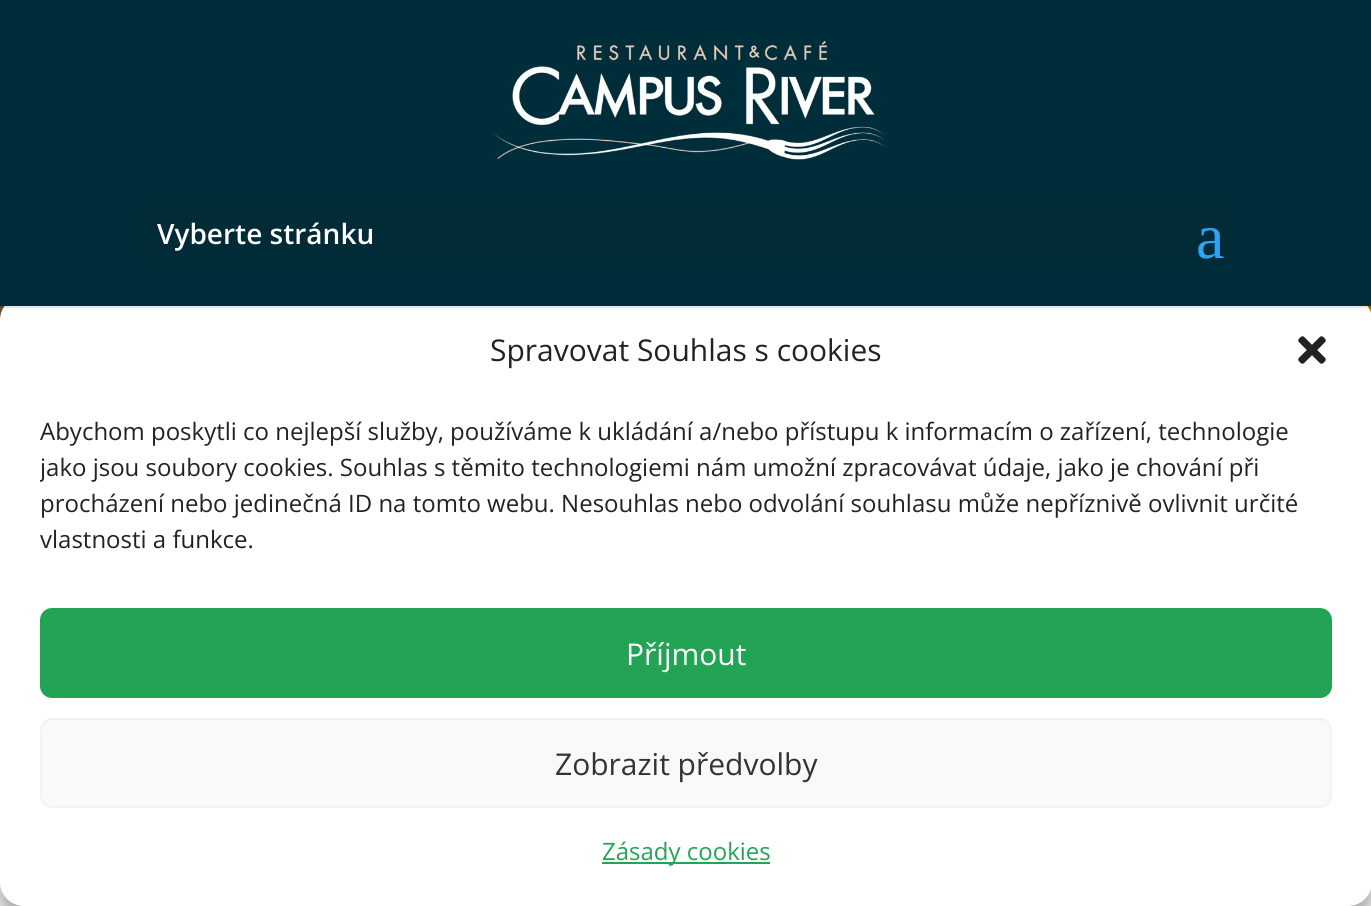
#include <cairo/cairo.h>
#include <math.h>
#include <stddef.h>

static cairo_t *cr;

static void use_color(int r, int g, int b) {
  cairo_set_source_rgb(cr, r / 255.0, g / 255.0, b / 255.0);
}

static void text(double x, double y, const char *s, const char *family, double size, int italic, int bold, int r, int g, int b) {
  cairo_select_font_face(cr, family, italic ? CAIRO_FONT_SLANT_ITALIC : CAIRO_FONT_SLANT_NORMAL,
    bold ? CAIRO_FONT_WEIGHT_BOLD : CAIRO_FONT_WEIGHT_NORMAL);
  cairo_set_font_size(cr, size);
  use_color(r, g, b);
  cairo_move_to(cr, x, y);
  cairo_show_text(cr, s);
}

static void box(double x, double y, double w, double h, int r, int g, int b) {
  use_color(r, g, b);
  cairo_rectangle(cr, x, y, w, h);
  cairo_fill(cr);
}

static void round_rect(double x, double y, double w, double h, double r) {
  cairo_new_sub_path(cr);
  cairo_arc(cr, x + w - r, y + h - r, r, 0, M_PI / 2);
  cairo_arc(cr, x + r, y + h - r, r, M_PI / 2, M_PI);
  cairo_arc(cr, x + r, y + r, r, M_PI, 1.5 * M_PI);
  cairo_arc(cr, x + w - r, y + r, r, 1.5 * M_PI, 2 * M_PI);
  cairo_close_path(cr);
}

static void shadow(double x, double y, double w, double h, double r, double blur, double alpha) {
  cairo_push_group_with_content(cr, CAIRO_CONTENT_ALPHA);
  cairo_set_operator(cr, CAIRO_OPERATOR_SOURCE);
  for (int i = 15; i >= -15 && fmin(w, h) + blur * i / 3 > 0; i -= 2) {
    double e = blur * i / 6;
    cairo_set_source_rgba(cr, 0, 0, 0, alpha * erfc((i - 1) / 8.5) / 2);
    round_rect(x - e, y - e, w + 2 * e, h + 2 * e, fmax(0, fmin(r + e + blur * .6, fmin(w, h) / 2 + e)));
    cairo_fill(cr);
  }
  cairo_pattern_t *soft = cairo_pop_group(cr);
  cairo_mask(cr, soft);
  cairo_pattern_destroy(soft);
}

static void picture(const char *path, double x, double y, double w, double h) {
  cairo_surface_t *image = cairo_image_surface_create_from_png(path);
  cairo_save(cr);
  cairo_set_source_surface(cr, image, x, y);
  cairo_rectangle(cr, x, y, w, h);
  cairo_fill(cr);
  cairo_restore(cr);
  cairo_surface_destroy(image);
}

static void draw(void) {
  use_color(255, 255, 255);
  cairo_paint(cr);
  picture("img_02.png", 0, 306, 1371, 14);
  use_color(0, 0, 0);
  shadow(0, 308, 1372, 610, 24, 6, 0.23);
  shadow(0, 316, 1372, 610, 24, 20, 0.19);
  use_color(255, 255, 255);
  round_rect(0, 296, 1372, 610, 24);
  cairo_fill(cr);
  cairo_set_source_rgba(cr, 0, 0, 0, 0.1);
  cairo_rectangle(cr, 0, 306, 1371, 2);
  cairo_fill(cr);
  box(0, 0, 1371, 306, 0, 45, 58);
  picture("img_01.png", 493, 40, 393, 120);
  use_color(0, 43, 55);
  round_rect(138, 200, 1096, 66, 10);
  cairo_fill(cr);
  picture("img_03.png", 1298, 336, 28, 28);
  use_color(35, 164, 85);
  round_rect(41, 609, 1290, 88, 11);
  cairo_fill_preserve(cr);
  cairo_stroke(cr);
  use_color(249, 249, 249);
  round_rect(41, 719, 1290, 88, 11);
  cairo_fill_preserve(cr);
  use_color(242, 242, 242);
  cairo_stroke(cr);
  box(602, 862, 168, 2, 35, 164, 85);
  text(157, 244, "Vyberte stránku", "Open Sans SemiBold", 28, 0, 0, 255, 255, 255);
  text(1196, 258, "a", "Liberation Serif", 64, 0, 0, 46, 163, 242);
  text(490, 361, "Spravovat Souhlas s cookies", "Open Sans", 30, 0, 0, 34, 34, 34);
  text(40, 440, "Abychom poskytli co nejlepší služby, používáme k ukládání a/nebo přístupu k informacím o zařízení, technologie", "Open Sans", 24, 0, 0, 34, 34, 34);
  cairo_save(cr);
  cairo_rectangle(cr, 40, 414, 1292, 154);
  cairo_clip(cr);
  text(40, 476, "jako jsou soubory cookies. Souhlas s těmito technologiemi nám umožní zpracovávat údaje, jako je chování při", "Open Sans", 24, 0, 0, 34, 34, 34);
  cairo_restore(cr);
  text(40, 512, "procházení nebo jedinečná ID na tomto webu. Nesouhlas nebo odvolání souhlasu může nepříznivě ovlivnit určité", "Open Sans", 24, 0, 0, 34, 34, 34);
  text(40, 548, "vlastnosti a funkce.", "Open Sans", 24, 0, 0, 34, 34, 34);
  text(626, 665, "Příjmout", "Open Sans", 30, 0, 0, 255, 255, 255);
  text(555, 775, "Zobrazit předvolby", "Open Sans", 30, 0, 0, 51, 51, 51);
  text(602, 860, "Zásady cookies", "Open Sans", 24, 0, 0, 35, 164, 85);
}

int main(void) {
  cairo_surface_t *surface = cairo_image_surface_create(CAIRO_FORMAT_RGB24, 1371, 906);
  cr = cairo_create(surface);
  cairo_font_options_t *options = cairo_font_options_create();
  cairo_font_options_set_hint_metrics(options, CAIRO_HINT_METRICS_OFF);
  cairo_font_options_set_hint_style(options, CAIRO_HINT_STYLE_NONE);
  cairo_set_font_options(cr, options);
  cairo_set_miter_limit(cr, 4);
  draw();
  cairo_surface_write_to_png(surface, "out.png");
  cairo_font_options_destroy(options);
  cairo_destroy(cr);
  cairo_surface_destroy(surface);
  return 0;
}
